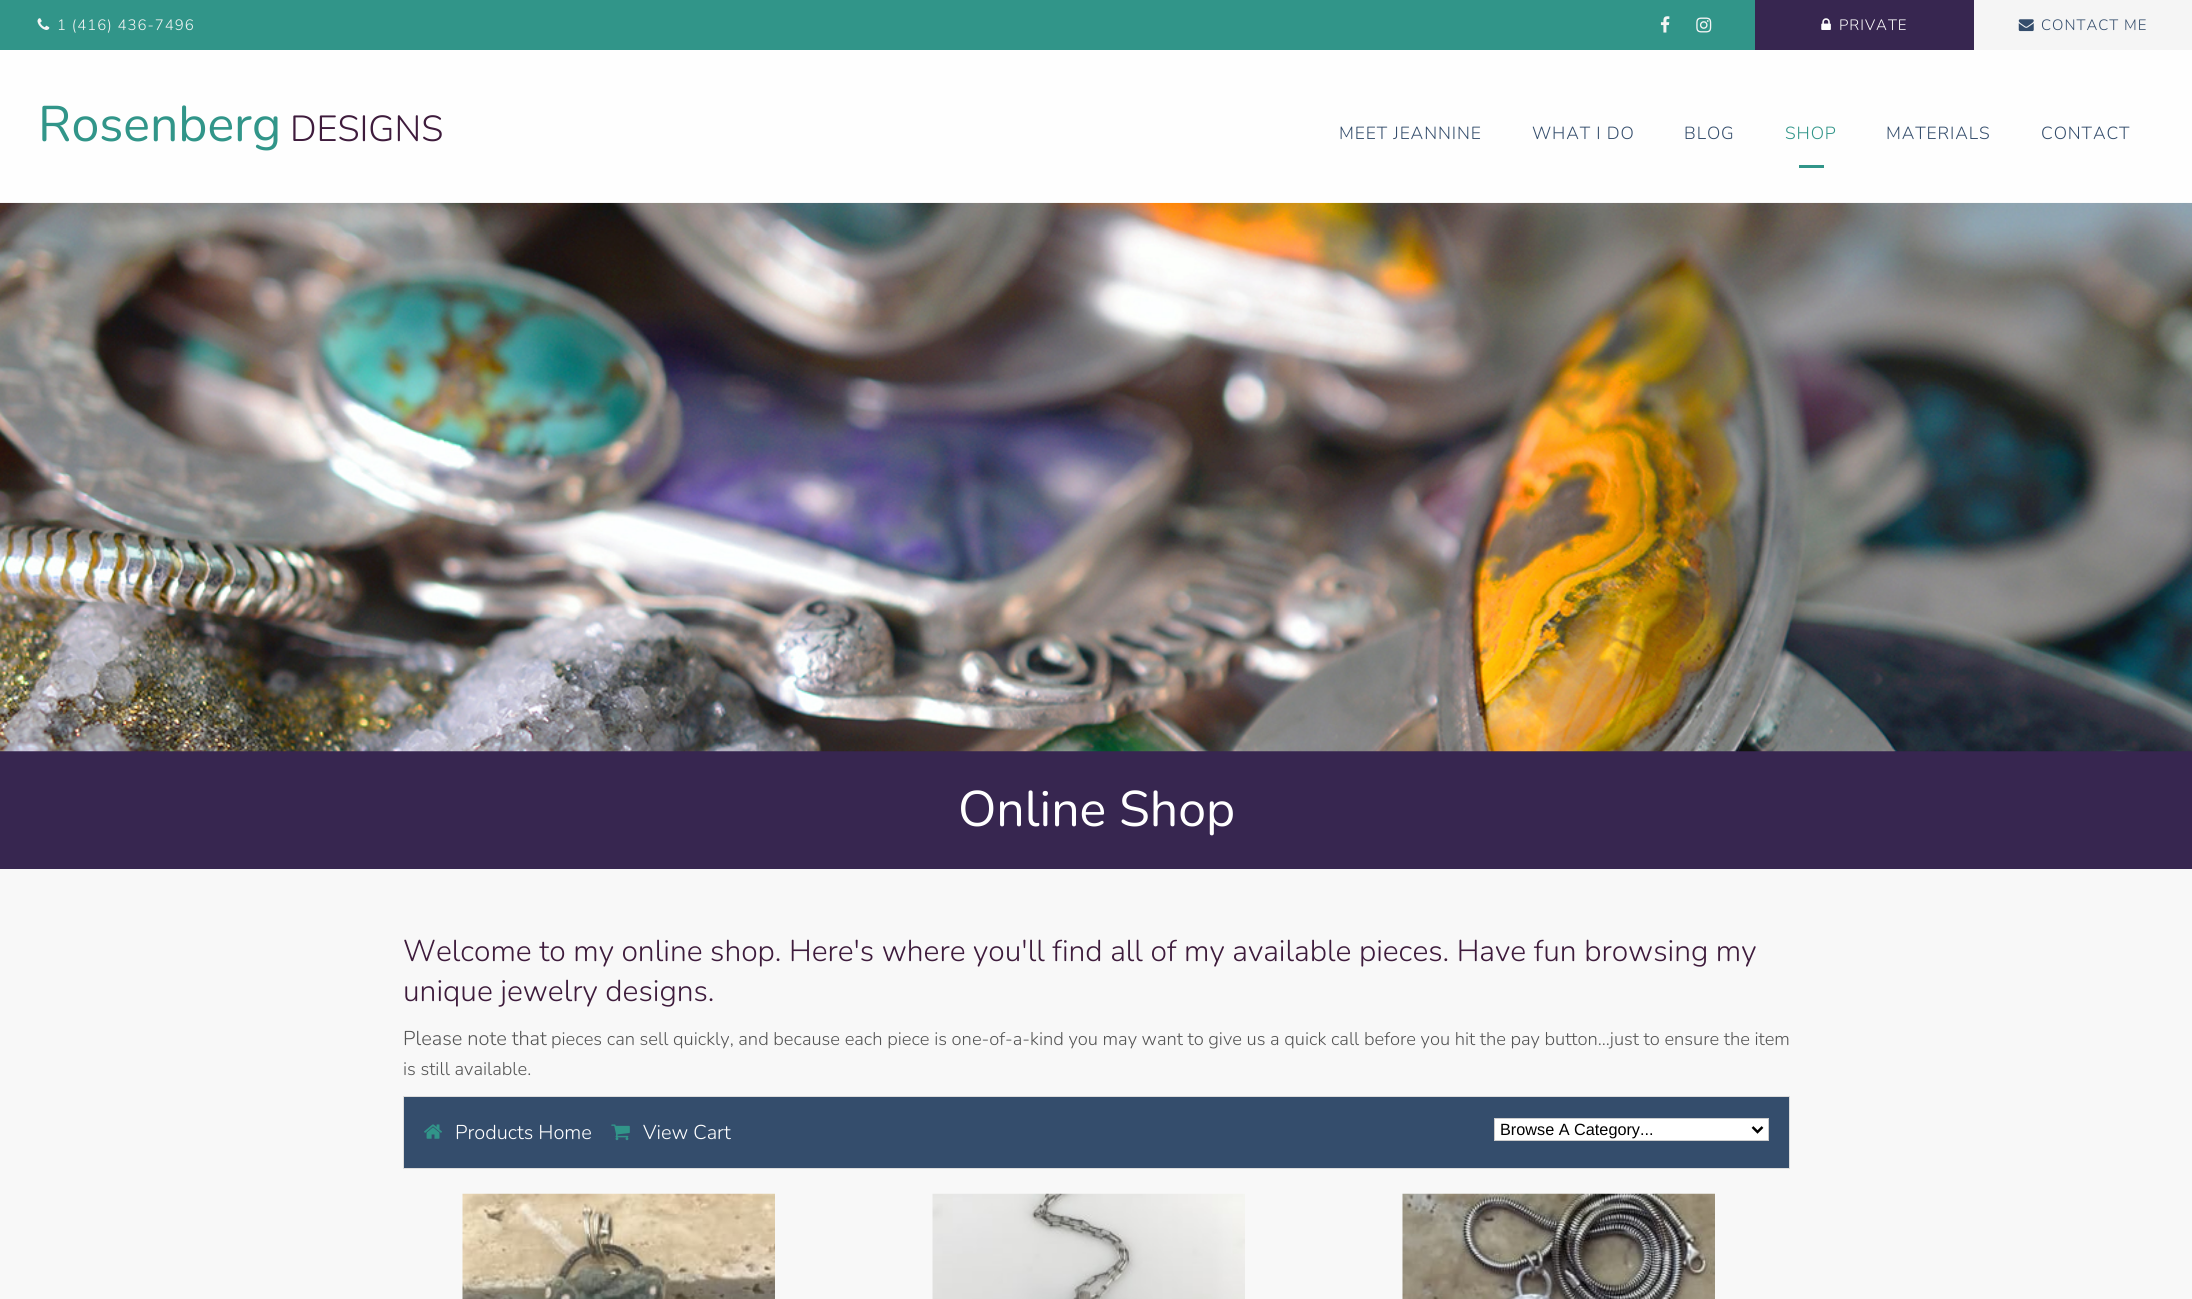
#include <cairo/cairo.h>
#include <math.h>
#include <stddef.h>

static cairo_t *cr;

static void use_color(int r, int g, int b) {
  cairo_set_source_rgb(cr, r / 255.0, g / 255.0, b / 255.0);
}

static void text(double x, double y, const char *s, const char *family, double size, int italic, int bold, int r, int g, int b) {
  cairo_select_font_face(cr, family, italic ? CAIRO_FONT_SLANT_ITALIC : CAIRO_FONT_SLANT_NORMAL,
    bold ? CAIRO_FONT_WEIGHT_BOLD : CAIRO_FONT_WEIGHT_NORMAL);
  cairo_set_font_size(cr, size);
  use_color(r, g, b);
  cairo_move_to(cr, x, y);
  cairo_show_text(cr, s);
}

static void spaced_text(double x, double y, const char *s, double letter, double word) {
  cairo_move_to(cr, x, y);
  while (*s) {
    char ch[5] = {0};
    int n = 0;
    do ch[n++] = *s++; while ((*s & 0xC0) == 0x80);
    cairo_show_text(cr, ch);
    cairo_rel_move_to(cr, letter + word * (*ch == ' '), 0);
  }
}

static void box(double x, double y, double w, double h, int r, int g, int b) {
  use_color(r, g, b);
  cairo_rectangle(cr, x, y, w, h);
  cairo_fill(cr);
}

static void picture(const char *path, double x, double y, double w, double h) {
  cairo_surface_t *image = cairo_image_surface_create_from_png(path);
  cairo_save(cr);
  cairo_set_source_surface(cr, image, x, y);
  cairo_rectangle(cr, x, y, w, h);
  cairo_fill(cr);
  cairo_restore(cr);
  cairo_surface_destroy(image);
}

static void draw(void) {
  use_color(248, 248, 248);
  cairo_paint(cr);
  box(0, 0, 1755, 50, 49, 149, 137);
  picture("img_01.png", 37, 18, 13, 12);
  picture("img_02.png", 1660, 16, 10, 17);
  picture("img_03.png", 1696, 17, 16, 16);
  box(1755, 0, 219, 50, 55, 38, 80);
  picture("img_04.png", 1821, 18, 10, 12);
  box(1974, 0, 218, 50, 245, 245, 245);
  picture("img_05.png", 2018, 19, 16, 13);
  box(0, 751, 2192, 118, 55, 38, 80);
  picture("img_06.png", 0, 202, 2192, 550);
  cairo_set_source_rgba(cr, 1, 1, 1, 0.9);
  cairo_rectangle(cr, 0, 50, 2192, 153);
  cairo_fill(cr);
  box(1799, 165, 25, 3, 49, 149, 137);
  use_color(52, 77, 108);
  cairo_rectangle(cr, 403.5, 1096.5, 1386, 72);
  cairo_fill_preserve(cr);
  use_color(221, 221, 221);
  cairo_set_line_width(cr, 1);
  cairo_stroke(cr);
  picture("img_07.png", 424, 1124, 18, 15);
  picture("img_08.png", 611, 1124, 19, 17);
  use_color(255, 255, 255);
  cairo_rectangle(cr, 1494.5, 1118.5, 274, 22);
  cairo_fill_preserve(cr);
  use_color(204, 204, 204);
  cairo_stroke(cr);
  cairo_new_path(cr);
  cairo_move_to(cr, 1752.5, 1127);
  cairo_line_to(cr, 1757.5, 1132);
  cairo_line_to(cr, 1762.5, 1127);
  use_color(0, 0, 0);
  cairo_set_line_width(cr, 2.5);
  cairo_stroke(cr);
  picture("img_09.png", 462, 1193, 313, 106);
  picture("img_10.png", 932, 1193, 313, 106);
  picture("img_11.png", 1402, 1193, 313, 106);
  cairo_select_font_face(cr, "Nunito Light", CAIRO_FONT_SLANT_NORMAL, CAIRO_FONT_WEIGHT_NORMAL);
  cairo_set_font_size(cr, 15);
  use_color(245, 245, 245);
  spaced_text(57, 30, "1 (416) 436-7496", 1, 0);
  use_color(255, 255, 255);
  spaced_text(1839, 30, "PRIVATE", 1, 0);
  use_color(52, 77, 108);
  spaced_text(2041, 30, "CONTACT ME", 1, 0);
  text(38, 141, "Rosenberg", "Nunito", 50, 0, 0, 49, 149, 137);
  text(290, 141, "DESIGNS", "Nunito Light", 36.25, 0, 0, 62, 27, 60);
  cairo_set_font_size(cr, 17.5);
  use_color(52, 77, 108);
  spaced_text(1339, 139, "MEET JEANNINE", 0.9, 0);
  spaced_text(1532, 139, "WHAT I DO", 0.9, 0);
  spaced_text(1684, 139, "BLOG", 0.9, 0);
  use_color(49, 149, 137);
  spaced_text(1785, 139, "SHOP", 0.9, 0);
  use_color(52, 77, 108);
  spaced_text(1886, 139, "MATERIALS", 0.9, 0);
  spaced_text(2041, 139, "CONTACT", 0.9, 0);
  text(958, 826, "Online Shop", "Nunito", 50, 0, 0, 255, 255, 255);
  text(403, 961, "Welcome to my online shop. Here's where you'll find all of my available pieces. Have fun browsing my", "Nunito Light", 30, 0, 0, 62, 27, 60);
  text(403, 1001, "unique jewelry designs.", "Nunito Light", 30, 0, 0, 62, 27, 60);
  text(403, 1045, "Please note that", "Nunito Light", 20, 0, 0, 85, 85, 85);
  text(551, 1045, "pieces can sell quickly, and because each piece is one-of-a-kind you may want to give us a quick call before you hit the pay button...just to ensure the item", "Nunito Light", 18.33, 0, 0, 85, 85, 85);
  text(403, 1075, "is still available.", "Nunito Light", 18.33, 0, 0, 85, 85, 85);
  text(455, 1139, "Products Home", "Nunito Light", 20, 0, 0, 255, 255, 255);
  text(643, 1139, "View Cart", "Nunito Light", 20, 0, 0, 255, 255, 255);
  text(1500, 1135, "Browse A Category...", "Liberation Sans", 16.25, 0, 0, 0, 0, 0);
}

int main(void) {
  cairo_surface_t *surface = cairo_image_surface_create(CAIRO_FORMAT_RGB24, 2192, 1299);
  cr = cairo_create(surface);
  cairo_font_options_t *options = cairo_font_options_create();
  cairo_font_options_set_hint_metrics(options, CAIRO_HINT_METRICS_OFF);
  cairo_font_options_set_hint_style(options, CAIRO_HINT_STYLE_NONE);
  cairo_set_font_options(cr, options);
  cairo_set_miter_limit(cr, 4);
  draw();
  cairo_surface_write_to_png(surface, "out.png");
  cairo_font_options_destroy(options);
  cairo_destroy(cr);
  cairo_surface_destroy(surface);
  return 0;
}
